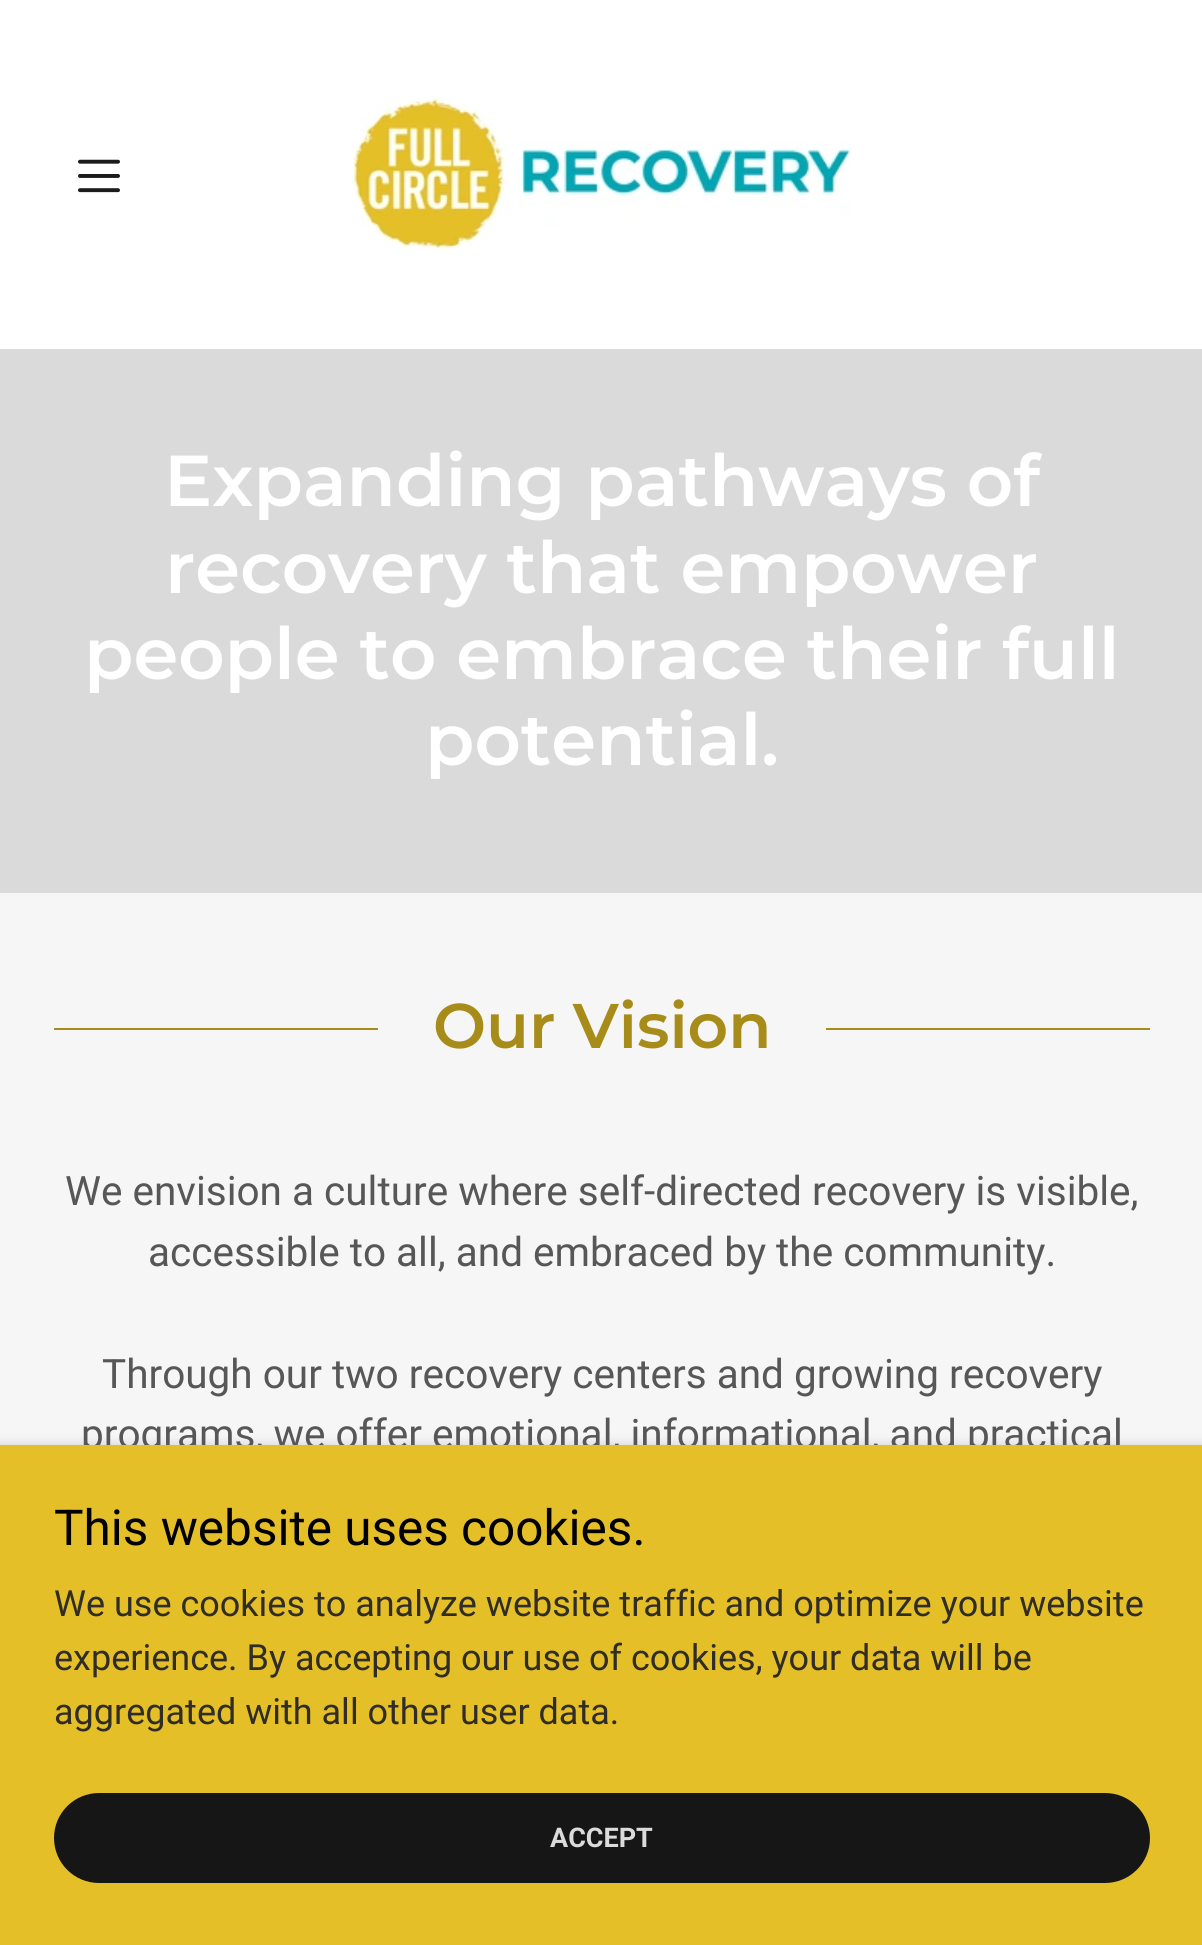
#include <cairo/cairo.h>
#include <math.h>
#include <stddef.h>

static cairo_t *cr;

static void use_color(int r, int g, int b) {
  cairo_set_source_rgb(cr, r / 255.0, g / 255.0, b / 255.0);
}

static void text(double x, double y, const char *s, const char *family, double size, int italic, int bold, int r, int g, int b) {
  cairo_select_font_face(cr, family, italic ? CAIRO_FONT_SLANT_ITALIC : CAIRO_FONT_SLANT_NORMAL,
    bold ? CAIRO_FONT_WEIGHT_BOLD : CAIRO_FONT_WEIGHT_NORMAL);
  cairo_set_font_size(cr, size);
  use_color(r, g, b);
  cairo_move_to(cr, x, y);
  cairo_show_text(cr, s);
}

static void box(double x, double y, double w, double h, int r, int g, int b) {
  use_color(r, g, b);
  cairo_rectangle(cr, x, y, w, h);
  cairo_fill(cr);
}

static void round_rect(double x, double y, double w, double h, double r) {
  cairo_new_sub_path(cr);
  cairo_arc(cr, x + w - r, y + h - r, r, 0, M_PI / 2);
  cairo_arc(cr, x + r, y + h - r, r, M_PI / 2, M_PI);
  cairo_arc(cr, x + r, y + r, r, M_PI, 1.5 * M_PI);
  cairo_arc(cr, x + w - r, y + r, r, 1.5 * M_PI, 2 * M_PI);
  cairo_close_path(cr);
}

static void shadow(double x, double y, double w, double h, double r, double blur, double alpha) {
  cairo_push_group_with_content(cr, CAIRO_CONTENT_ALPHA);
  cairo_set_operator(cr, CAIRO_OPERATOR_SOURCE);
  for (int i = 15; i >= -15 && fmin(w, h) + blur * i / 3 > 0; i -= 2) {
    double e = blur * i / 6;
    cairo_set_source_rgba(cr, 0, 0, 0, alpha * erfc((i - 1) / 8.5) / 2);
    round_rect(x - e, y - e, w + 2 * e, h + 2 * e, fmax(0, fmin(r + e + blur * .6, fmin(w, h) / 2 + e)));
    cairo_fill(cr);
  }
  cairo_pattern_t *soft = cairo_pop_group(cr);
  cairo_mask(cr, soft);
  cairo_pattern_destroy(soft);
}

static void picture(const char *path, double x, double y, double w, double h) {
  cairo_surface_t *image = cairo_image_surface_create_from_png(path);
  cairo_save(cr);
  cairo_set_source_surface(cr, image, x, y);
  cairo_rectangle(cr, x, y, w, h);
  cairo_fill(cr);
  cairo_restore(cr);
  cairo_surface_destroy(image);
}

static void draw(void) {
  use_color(255, 255, 255);
  cairo_paint(cr);
  picture("img_01.png", 78, 159, 42, 34);
  picture("img_02.png", 353, 96, 498, 156);
  box(0, 349, 1202, 544, 218, 218, 218);
  box(0, 893, 1202, 552, 246, 246, 246);
  box(54, 1028, 324, 2, 168, 140, 25);
  box(826, 1028, 324, 2, 168, 140, 25);
  use_color(0, 0, 0);
  shadow(0, 1449, 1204, 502, 0, 7, 0.3);
  text(164, 506, "Expanding pathways of", "Montserrat SemiBold", 72, 0, 0, 255, 255, 255);
  text(165, 593, "recovery that empower", "Montserrat SemiBold", 72, 0, 0, 255, 255, 255);
  text(84, 679, "people to embrace their full", "Montserrat SemiBold", 72, 0, 0, 255, 255, 255);
  text(425, 765, "potential.", "Montserrat SemiBold", 72, 0, 0, 255, 255, 255);
  text(433, 1048, "Our Vision", "Montserrat SemiBold", 63, 0, 0, 168, 140, 25);
  text(65, 1205, "We envision a culture where self-directed recovery is visible,", "Roboto", 40.5, 0, 0, 87, 87, 87);
  text(148, 1266, "accessible to all, and embraced by the community.", "Roboto", 40.5, 0, 0, 87, 87, 87);
  text(102, 1388, "Through our two recovery centers and growing recovery", "Roboto", 40.5, 0, 0, 87, 87, 87);
  text(81, 1448, "programs, we offer emotional, informational, and practical", "Roboto", 40.5, 0, 0, 87, 87, 87);
  box(0, 1445, 1202, 500, 228, 191, 40);
  text(54, 1545, "This website uses cookies.", "Roboto", 49.5, 0, 0, 0, 0, 0);
  text(54, 1616, "We use cookies to analyze website traffic and optimize your website", "Roboto", 36, 0, 0, 48, 45, 38);
  text(54, 1670, "experience. By accepting our use of cookies, your data will be", "Roboto", 36, 0, 0, 48, 45, 38);
  text(54, 1724, "aggregated with all other user data.", "Roboto", 36, 0, 0, 48, 45, 38);
  use_color(22, 22, 22);
  round_rect(54, 1793, 1096, 90, 45);
  cairo_fill(cr);
  text(550, 1847, "ACCEPT", "Roboto", 27, 0, 1, 219, 219, 219);
}

int main(void) {
  cairo_surface_t *surface = cairo_image_surface_create(CAIRO_FORMAT_RGB24, 1202, 1945);
  cr = cairo_create(surface);
  cairo_font_options_t *options = cairo_font_options_create();
  cairo_font_options_set_hint_metrics(options, CAIRO_HINT_METRICS_OFF);
  cairo_font_options_set_hint_style(options, CAIRO_HINT_STYLE_NONE);
  cairo_set_font_options(cr, options);
  cairo_set_miter_limit(cr, 4);
  draw();
  cairo_surface_write_to_png(surface, "out.png");
  cairo_font_options_destroy(options);
  cairo_destroy(cr);
  cairo_surface_destroy(surface);
  return 0;
}
